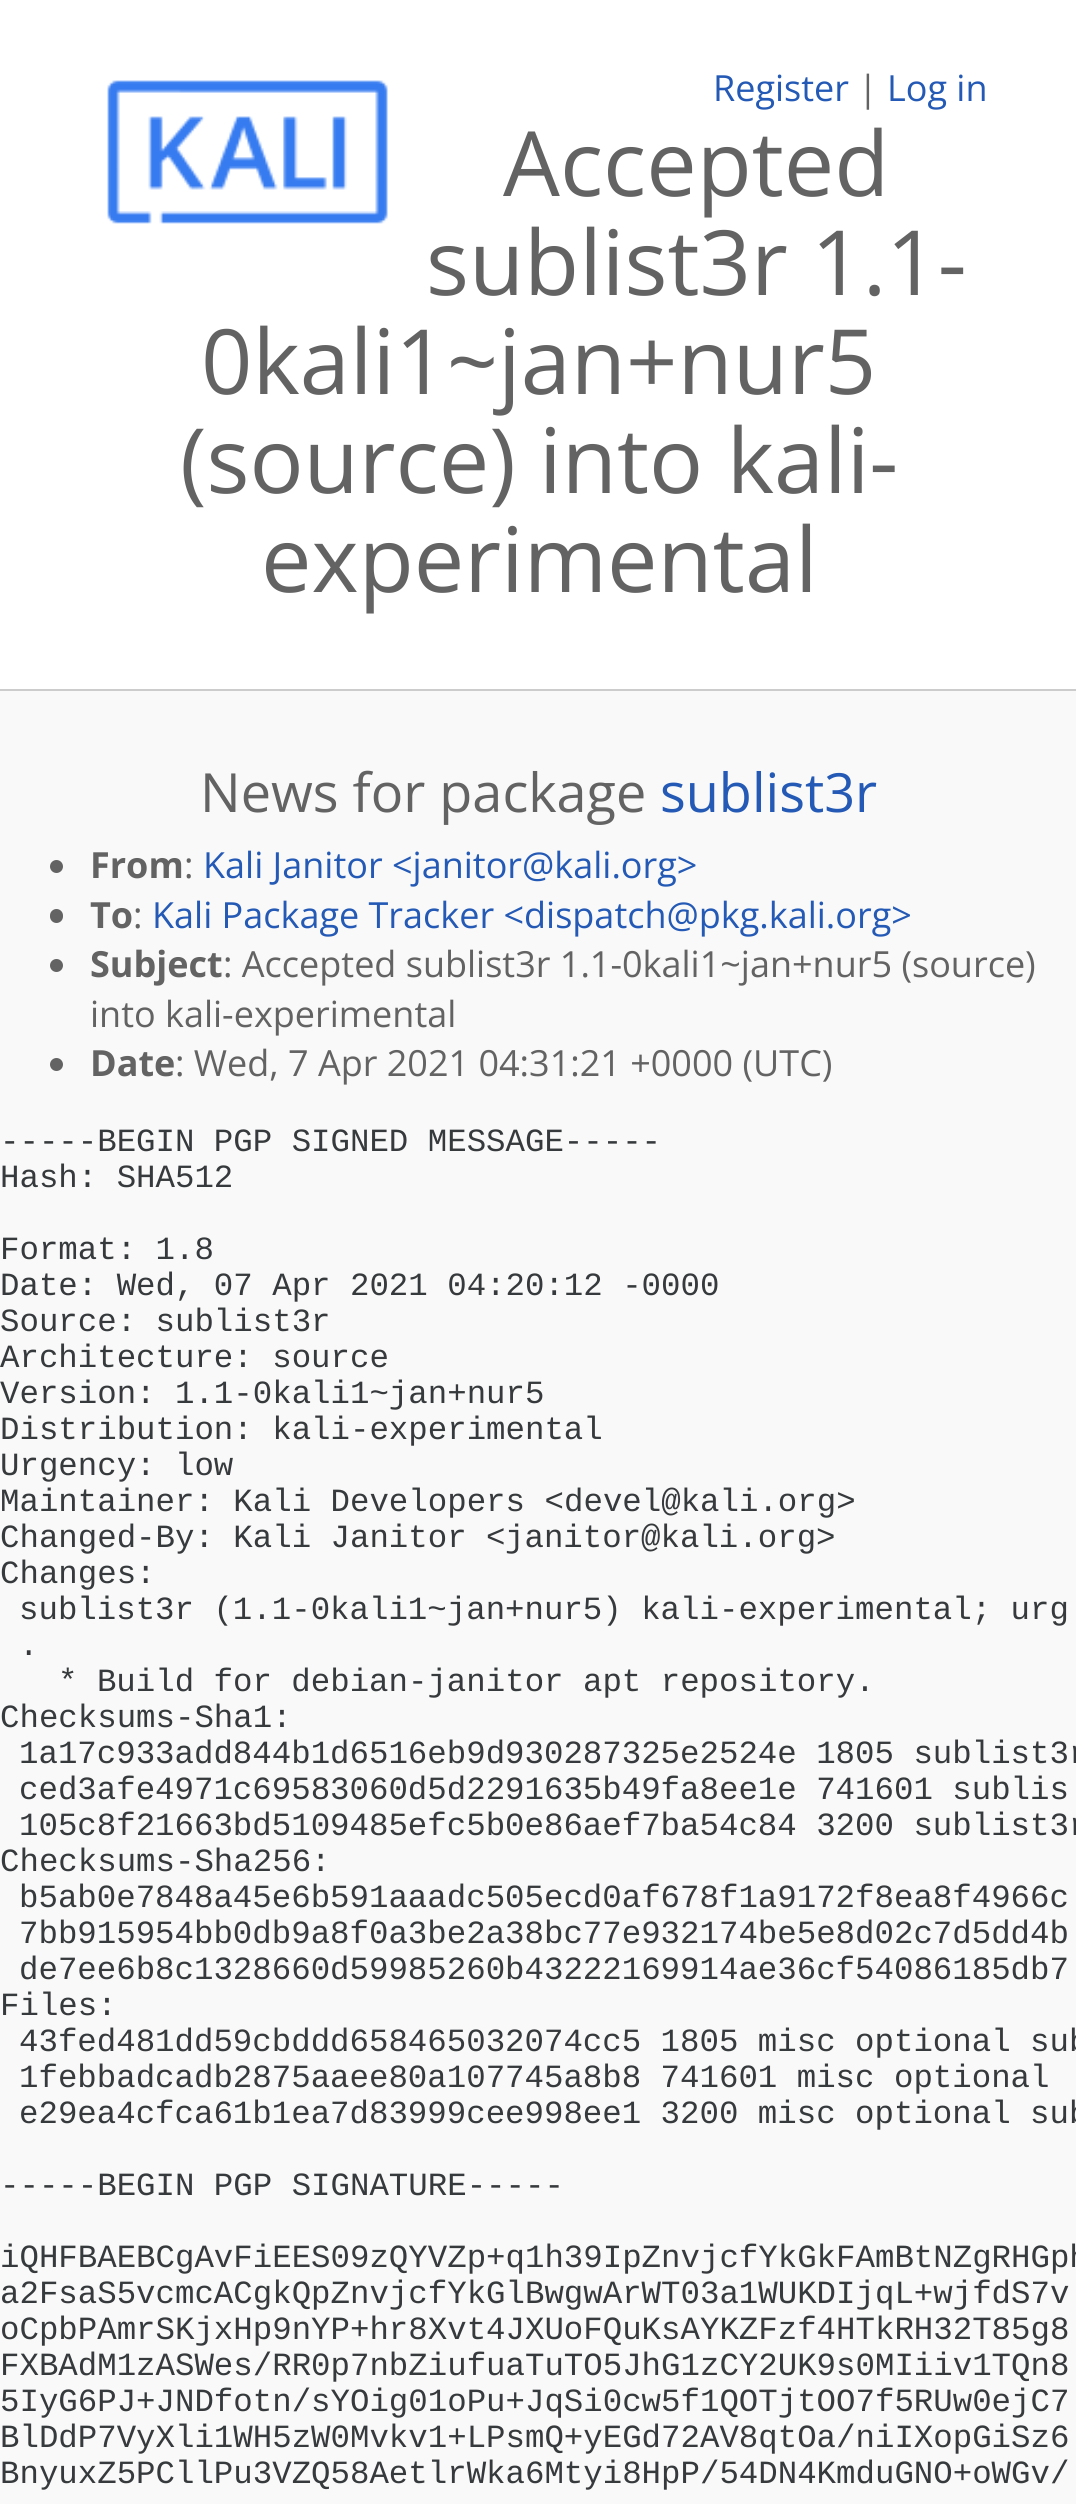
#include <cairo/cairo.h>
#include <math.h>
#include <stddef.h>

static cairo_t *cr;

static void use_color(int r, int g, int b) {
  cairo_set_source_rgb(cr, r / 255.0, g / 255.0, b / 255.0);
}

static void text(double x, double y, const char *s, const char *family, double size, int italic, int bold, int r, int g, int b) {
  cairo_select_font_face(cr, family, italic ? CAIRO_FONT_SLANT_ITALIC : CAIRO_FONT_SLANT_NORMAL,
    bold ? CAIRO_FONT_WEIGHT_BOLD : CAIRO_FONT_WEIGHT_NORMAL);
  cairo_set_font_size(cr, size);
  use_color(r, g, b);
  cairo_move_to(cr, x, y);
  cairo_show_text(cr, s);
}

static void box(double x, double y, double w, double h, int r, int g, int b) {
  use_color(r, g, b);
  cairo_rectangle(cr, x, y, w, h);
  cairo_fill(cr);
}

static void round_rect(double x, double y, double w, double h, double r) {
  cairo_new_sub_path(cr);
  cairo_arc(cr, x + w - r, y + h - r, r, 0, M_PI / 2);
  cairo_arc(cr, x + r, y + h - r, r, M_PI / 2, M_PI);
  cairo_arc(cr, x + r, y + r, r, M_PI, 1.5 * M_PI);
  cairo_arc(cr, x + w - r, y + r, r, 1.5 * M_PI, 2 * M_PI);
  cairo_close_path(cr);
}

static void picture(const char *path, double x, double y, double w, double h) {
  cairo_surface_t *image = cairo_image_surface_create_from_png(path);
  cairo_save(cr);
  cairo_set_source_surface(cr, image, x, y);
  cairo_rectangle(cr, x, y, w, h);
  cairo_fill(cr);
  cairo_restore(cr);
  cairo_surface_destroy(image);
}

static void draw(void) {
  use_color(249, 249, 249);
  cairo_paint(cr);
  box(0, 0, 1076, 689, 255, 255, 255);
  box(0, 689, 1076, 2, 204, 204, 204);
  picture("img_01.png", 107, 80, 281, 144);
  use_color(99, 99, 99);
  cairo_arc(cr, 56.5, 866.5, 6.5, 0, 2 * M_PI);
  cairo_fill(cr);
  round_rect(50, 909, 13, 14, 6.5);
  cairo_fill(cr);
  cairo_arc(cr, 56.5, 965.5, 6.5, 0, 2 * M_PI);
  cairo_fill(cr);
  cairo_arc(cr, 56.5, 1064.5, 6.5, 0, 2 * M_PI);
  cairo_fill(cr);
  text(713, 101, "Register", "Open Sans", 36, 0, 0, 36, 90, 181);
  text(858, 101, "|", "Open Sans", 36, 0, 0, 99, 99, 99);
  text(887, 101, "Log in", "Open Sans", 36, 0, 0, 36, 90, 181);
  text(503, 196, "Accepted", "Open Sans", 90, 0, 0, 99, 99, 99);
  text(426, 295, "sublist3r 1.1-", "Open Sans", 90, 0, 0, 99, 99, 99);
  text(201, 394, "0kali1~jan+nur5", "Open Sans", 90, 0, 0, 99, 99, 99);
  text(180, 493, "(source) into kali-", "Open Sans", 90, 0, 0, 99, 99, 99);
  text(261, 592, "experimental", "Open Sans", 90, 0, 0, 99, 99, 99);
  text(200, 812, "News for package", "Open Sans", 54, 0, 0, 99, 99, 99);
  text(660, 812, "sublist3r", "Open Sans", 54, 0, 0, 36, 90, 181);
  text(90, 878, "From", "Open Sans", 36, 0, 1, 99, 99, 99);
  text(184, 878, ":", "Open Sans", 36, 0, 0, 99, 99, 99);
  text(203, 878, "Kali Janitor <janitor@kali.org>", "Open Sans", 36, 0, 0, 36, 90, 181);
  text(90, 928, "To", "Open Sans", 36, 0, 1, 99, 99, 99);
  text(133, 928, ":", "Open Sans", 36, 0, 0, 99, 99, 99);
  text(152, 928, "Kali Package Tracker <dispatch@pkg.kali.org>", "Open Sans", 36, 0, 0, 36, 90, 181);
  text(90, 977, "Subject", "Open Sans", 36, 0, 1, 99, 99, 99);
  text(223, 977, ": Accepted sublist3r 1.1-0kali1~jan+nur5 (source)", "Open Sans", 36, 0, 0, 99, 99, 99);
  text(90, 1027, "into kali-experimental", "Open Sans", 36, 0, 0, 99, 99, 99);
  text(90, 1076, "Date", "Open Sans", 36, 0, 1, 99, 99, 99);
  text(175, 1076, ": Wed, 7 Apr 2021 04:31:21 +0000 (UTC)", "Open Sans", 36, 0, 0, 99, 99, 99);
  text(0, 1151, "-----BEGIN PGP SIGNED MESSAGE-----", "Liberation Mono", 32.4, 0, 0, 55, 58, 60);
  text(0, 1187, "Hash: SHA512", "Liberation Mono", 32.4, 0, 0, 55, 58, 60);
  text(0, 1259, "Format: 1.8", "Liberation Mono", 32.4, 0, 0, 55, 58, 60);
  text(0, 1295, "Date: Wed, 07 Apr 2021 04:20:12 -0000", "Liberation Mono", 32.4, 0, 0, 55, 58, 60);
  text(0, 1331, "Source: sublist3r", "Liberation Mono", 32.4, 0, 0, 55, 58, 60);
  text(0, 1367, "Architecture: source", "Liberation Mono", 32.4, 0, 0, 55, 58, 60);
  text(0, 1403, "Version: 1.1-0kali1~jan+nur5", "Liberation Mono", 32.4, 0, 0, 55, 58, 60);
  text(0, 1439, "Distribution: kali-experimental", "Liberation Mono", 32.4, 0, 0, 55, 58, 60);
  text(0, 1475, "Urgency: low", "Liberation Mono", 32.4, 0, 0, 55, 58, 60);
  text(0, 1511, "Maintainer: Kali Developers <", "Liberation Mono", 32.4, 0, 0, 55, 58, 60);
  text(564, 1511, "devel@kali.org>", "Liberation Mono", 32.4, 0, 0, 55, 58, 60);
  text(0, 1547, "Changed-By: Kali Janitor <", "Liberation Mono", 32.4, 0, 0, 55, 58, 60);
  text(505, 1547, "janitor@kali.org>", "Liberation Mono", 32.4, 0, 0, 55, 58, 60);
  text(0, 1583, "Changes:", "Liberation Mono", 32.4, 0, 0, 55, 58, 60);
  text(19, 1619, "sublist3r (1.1-0kali1~jan+nur5) kali-experimental; urg", "Liberation Mono", 32.4, 0, 0, 55, 58, 60);
  text(19, 1655, ".", "Liberation Mono", 32.4, 0, 0, 55, 58, 60);
  text(58, 1691, "* Build for debian-janitor apt repository.", "Liberation Mono", 32.4, 0, 0, 55, 58, 60);
  text(0, 1727, "Checksums-Sha1:", "Liberation Mono", 32.4, 0, 0, 55, 58, 60);
  text(19, 1763, "1a17c933add844b1d6516eb9d930287325e2524e 1805 sublist3r", "Liberation Mono", 32.4, 0, 0, 55, 58, 60);
  text(19, 1799, "ced3afe4971c69583060d5d2291635b49fa8ee1e 741601 sublis", "Liberation Mono", 32.4, 0, 0, 55, 58, 60);
  text(19, 1835, "105c8f21663bd5109485efc5b0e86aef7ba54c84 3200 sublist3r", "Liberation Mono", 32.4, 0, 0, 55, 58, 60);
  text(0, 1871, "Checksums-Sha256:", "Liberation Mono", 32.4, 0, 0, 55, 58, 60);
  text(19, 1907, "b5ab0e7848a45e6b591aaadc505ecd0af678f1a9172f8ea8f4966c", "Liberation Mono", 32.4, 0, 0, 55, 58, 60);
  text(19, 1943, "7bb915954bb0db9a8f0a3be2a38bc77e932174be5e8d02c7d5dd4b", "Liberation Mono", 32.4, 0, 0, 55, 58, 60);
  text(19, 1979, "de7ee6b8c1328660d59985260b43222169914ae36cf54086185db7", "Liberation Mono", 32.4, 0, 0, 55, 58, 60);
  text(0, 2015, "Files:", "Liberation Mono", 32.4, 0, 0, 55, 58, 60);
  text(19, 2051, "43fed481dd59cbddd658465032074cc5 1805 misc optional sub", "Liberation Mono", 32.4, 0, 0, 55, 58, 60);
  text(19, 2087, "1febbadcadb2875aaee80a107745a8b8 741601 misc optional", "Liberation Mono", 32.4, 0, 0, 55, 58, 60);
  text(19, 2123, "e29ea4cfca61b1ea7d83999cee998ee1 3200 misc optional sub", "Liberation Mono", 32.4, 0, 0, 55, 58, 60);
  text(0, 2195, "-----BEGIN PGP SIGNATURE-----", "Liberation Mono", 32.4, 0, 0, 55, 58, 60);
  text(0, 2267, "iQHFBAEBCgAvFiEES09zQYVZp+q1h39IpZnvjcfYkGkFAmBtNZgRHGph", "Liberation Mono", 32.4, 0, 0, 55, 58, 60);
  text(0, 2303, "a2FsaS5vcmcACgkQpZnvjcfYkGlBwgwArWT03a1WUKDIjqL+wjfdS7v", "Liberation Mono", 32.4, 0, 0, 55, 58, 60);
  text(0, 2339, "oCpbPAmrSKjxHp9nYP+hr8Xvt4JXUoFQuKsAYKZFzf4HTkRH32T85g8", "Liberation Mono", 32.4, 0, 0, 55, 58, 60);
  text(0, 2375, "FXBAdM1zASWes/RR0p7nbZiufuaTuTO5JhG1zCY2UK9s0MIiiv1TQn8", "Liberation Mono", 32.4, 0, 0, 55, 58, 60);
  text(0, 2411, "5IyG6PJ+JNDfotn/sYOig01oPu+JqSi0cw5f1QOTjtOO7f5RUw0ejC7", "Liberation Mono", 32.4, 0, 0, 55, 58, 60);
  text(0, 2447, "BlDdP7VyXli1WH5zW0Mvkv1+LPsmQ+yEGd72AV8qtOa/niIXopGiSz6", "Liberation Mono", 32.4, 0, 0, 55, 58, 60);
  text(0, 2483, "BnyuxZ5PCllPu3VZQ58AetlrWka6Mtyi8HpP/54DN4KmduGNO+oWGv/", "Liberation Mono", 32.4, 0, 0, 55, 58, 60);
}

int main(void) {
  cairo_surface_t *surface = cairo_image_surface_create(CAIRO_FORMAT_RGB24, 1076, 2504);
  cr = cairo_create(surface);
  cairo_font_options_t *options = cairo_font_options_create();
  cairo_font_options_set_hint_metrics(options, CAIRO_HINT_METRICS_OFF);
  cairo_font_options_set_hint_style(options, CAIRO_HINT_STYLE_NONE);
  cairo_set_font_options(cr, options);
  cairo_set_miter_limit(cr, 4);
  draw();
  cairo_surface_write_to_png(surface, "out.png");
  cairo_font_options_destroy(options);
  cairo_destroy(cr);
  cairo_surface_destroy(surface);
  return 0;
}
